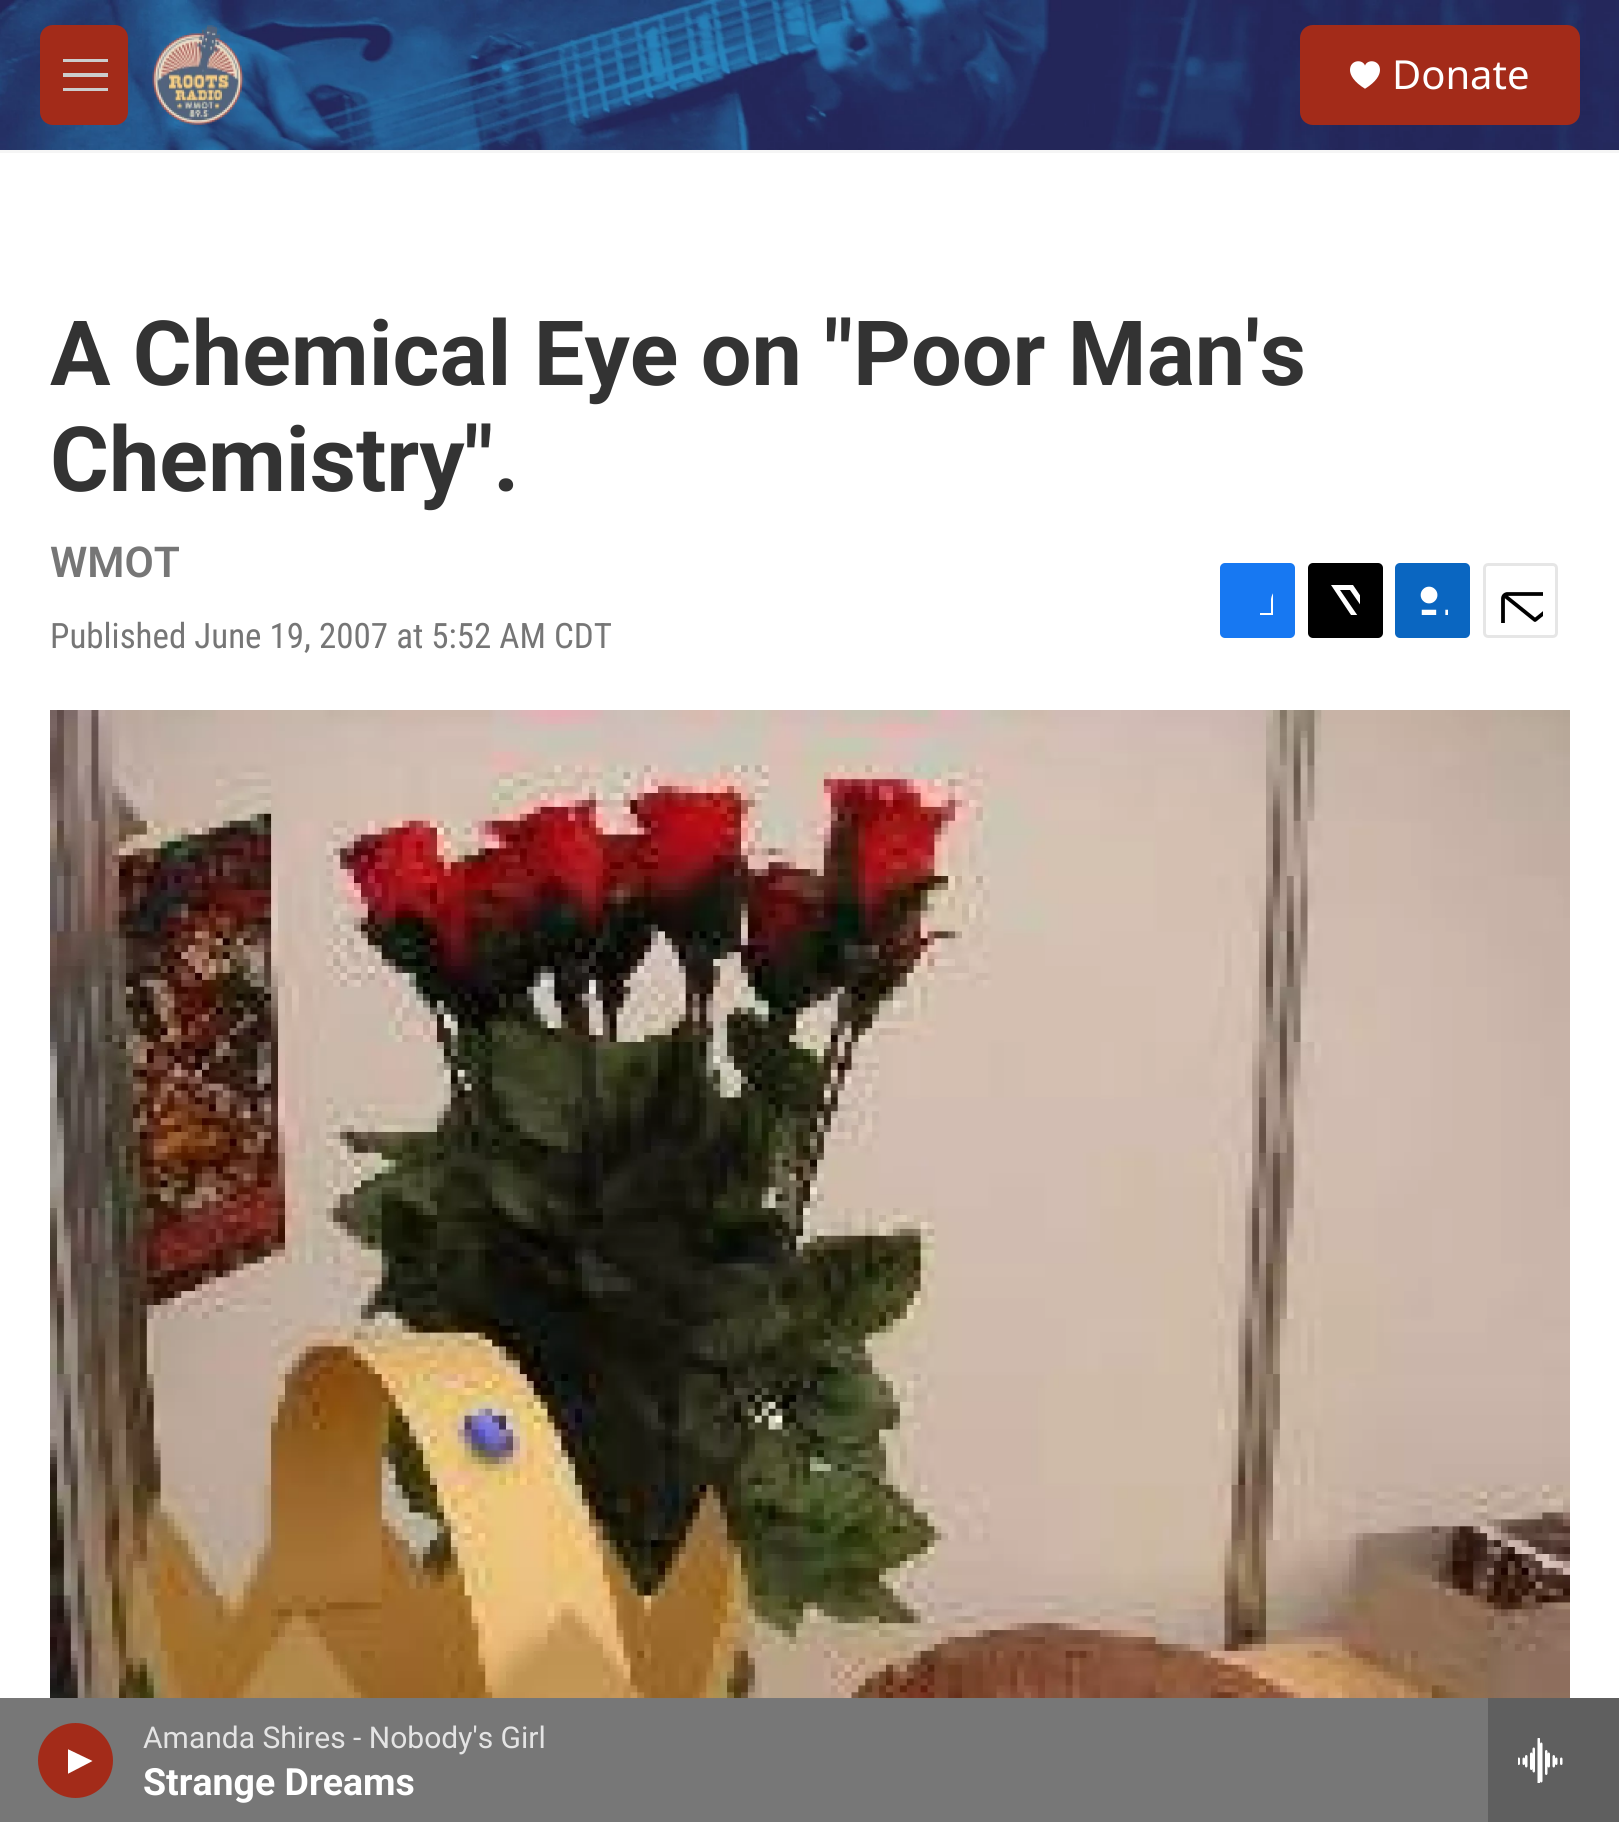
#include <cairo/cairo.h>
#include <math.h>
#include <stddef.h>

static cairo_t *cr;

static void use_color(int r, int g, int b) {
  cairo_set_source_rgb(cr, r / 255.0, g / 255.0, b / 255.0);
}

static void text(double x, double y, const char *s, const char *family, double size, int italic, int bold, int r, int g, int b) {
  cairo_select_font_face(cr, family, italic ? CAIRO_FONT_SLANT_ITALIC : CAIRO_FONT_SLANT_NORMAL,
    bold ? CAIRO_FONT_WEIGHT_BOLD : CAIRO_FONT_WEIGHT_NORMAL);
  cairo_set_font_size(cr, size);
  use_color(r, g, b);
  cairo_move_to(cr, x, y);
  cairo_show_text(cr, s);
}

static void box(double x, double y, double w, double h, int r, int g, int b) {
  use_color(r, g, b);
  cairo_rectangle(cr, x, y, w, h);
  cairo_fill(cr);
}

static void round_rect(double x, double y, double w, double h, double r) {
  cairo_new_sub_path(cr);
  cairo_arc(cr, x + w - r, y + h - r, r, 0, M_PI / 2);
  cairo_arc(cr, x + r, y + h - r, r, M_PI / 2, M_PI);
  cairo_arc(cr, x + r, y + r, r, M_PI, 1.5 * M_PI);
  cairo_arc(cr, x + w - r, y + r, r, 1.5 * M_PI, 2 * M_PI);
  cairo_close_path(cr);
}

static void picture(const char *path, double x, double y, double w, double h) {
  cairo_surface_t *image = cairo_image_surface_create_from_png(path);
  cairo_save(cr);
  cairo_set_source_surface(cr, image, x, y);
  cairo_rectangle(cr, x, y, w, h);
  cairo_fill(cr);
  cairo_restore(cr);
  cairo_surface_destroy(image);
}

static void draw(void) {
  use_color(255, 255, 255);
  cairo_paint(cr);
  box(0, 150, 1619, 3, 245, 245, 245);
  picture("img_01.png", 0, 0, 1619, 150);
  use_color(163, 43, 25);
  round_rect(40, 25, 88, 100, 13);
  cairo_fill(cr);
  cairo_save(cr);
  cairo_rectangle(cr, 63, 53, 45, 45);
  cairo_clip(cr);
  use_color(204, 204, 204);
  cairo_set_fill_rule(cr, CAIRO_FILL_RULE_EVEN_ODD);
  cairo_new_path(cr);
  cairo_move_to(cr, 62, 77);
  cairo_line_to(cr, 62, 73);
  cairo_line_to(cr, 108, 73);
  cairo_line_to(cr, 108, 77);
  cairo_close_path(cr);
  cairo_move_to(cr, 62, 62);
  cairo_line_to(cr, 62, 59);
  cairo_line_to(cr, 108, 59);
  cairo_line_to(cr, 108, 62);
  cairo_close_path(cr);
  cairo_move_to(cr, 62, 91);
  cairo_line_to(cr, 62, 88);
  cairo_line_to(cr, 108, 88);
  cairo_line_to(cr, 108, 91);
  cairo_close_path(cr);
  cairo_fill(cr);
  cairo_restore(cr);
  picture("img_02.png", 152, 25, 92, 100);
  round_rect(1300, 25, 280, 100, 13);
  cairo_fill(cr);
  picture("img_03.png", 1350, 61, 30, 28);
  box(0, 1698, 1488, 124, 119, 119, 119);
  use_color(163, 43, 25);
  cairo_arc(cr, 75.5, 1760.5, 37.5, 0, 2 * M_PI);
  cairo_fill(cr);
  cairo_save(cr);
  cairo_rectangle(cr, 68, 1748, 25, 27);
  cairo_clip(cr);
  use_color(255, 255, 255);
  cairo_new_path(cr);
  cairo_move_to(cr, 67.5, 1749);
  cairo_line_to(cr, 92.5, 1761);
  cairo_line_to(cr, 67.5, 1774);
  cairo_close_path(cr);
  cairo_fill(cr);
  cairo_restore(cr);
  box(1488, 1698, 131, 124, 95, 95, 95);
  picture("img_04.png", 1518, 1738, 45, 45);
  use_color(23, 120, 242);
  round_rect(1220, 563, 75, 75, 5);
  cairo_fill(cr);
  cairo_save(cr);
  cairo_rectangle(cr, 1243, 585, 30, 30);
  cairo_clip(cr);
  use_color(255, 255, 255);
  cairo_new_path(cr);
  cairo_move_to(cr, 1284, 638);
  cairo_line_to(cr, 1271, 638);
  cairo_line_to(cr, 1271, 625);
  cairo_line_to(cr, 1260, 625);
  cairo_line_to(cr, 1260, 613);
  cairo_line_to(cr, 1271, 613);
  cairo_line_to(cr, 1271, 599);
  cairo_curve_to(cr, 1273, 587, 1284, 585, 1295, 587);
  cairo_line_to(cr, 1295, 598);
  cairo_curve_to(cr, 1281, 598, 1284, 602, 1284, 613);
  cairo_line_to(cr, 1295, 613);
  cairo_line_to(cr, 1295, 619);
  cairo_line_to(cr, 1294, 625);
  cairo_line_to(cr, 1284, 625);
  cairo_close_path(cr);
  cairo_fill(cr);
  cairo_restore(cr);
  use_color(0, 0, 0);
  round_rect(1308, 563, 75, 75, 5);
  cairo_fill(cr);
  cairo_save(cr);
  cairo_rectangle(cr, 1330, 585, 30, 30);
  cairo_clip(cr);
  use_color(255, 255, 255);
  cairo_new_path(cr);
  cairo_move_to(cr, 1374, 617);
  cairo_line_to(cr, 1383, 630);
  cairo_curve_to(cr, 1383, 632, 1383, 634, 1382, 636);
  cairo_line_to(cr, 1350, 590);
  cairo_line_to(cr, 1340, 590);
  cairo_line_to(cr, 1373, 638);
  cairo_line_to(cr, 1367, 638);
  cairo_line_to(cr, 1362, 631);
  cairo_line_to(cr, 1356, 638);
  cairo_line_to(cr, 1350, 638);
  cairo_line_to(cr, 1359, 627);
  cairo_line_to(cr, 1331, 585);
  cairo_line_to(cr, 1353, 585);
  cairo_line_to(cr, 1372, 613);
  cairo_line_to(cr, 1383, 600);
  cairo_line_to(cr, 1383, 607);
  cairo_close_path(cr);
  cairo_fill(cr);
  cairo_restore(cr);
  use_color(10, 102, 193);
  round_rect(1395, 563, 75, 75, 5);
  cairo_fill(cr);
  picture("img_05.png", 1420, 586, 28, 29);
  round_rect(1484.5, 564.5, 72, 72, 3.5);
  use_color(230, 230, 230);
  cairo_set_line_width(cr, 3);
  cairo_stroke(cr);
  cairo_save(cr);
  cairo_rectangle(cr, 1498, 578, 45, 45);
  cairo_clip(cr);
  cairo_new_path(cr);
  cairo_move_to(cr, 1567, 632.5);
  cairo_curve_to(cr, 1567, 635, 1565, 637, 1562.5, 637);
  cairo_line_to(cr, 1507.5, 637);
  cairo_curve_to(cr, 1505, 637, 1503, 635, 1503, 632.5);
  cairo_line_to(cr, 1503, 598.5);
  cairo_curve_to(cr, 1503, 596, 1505, 594, 1507.5, 594);
  cairo_line_to(cr, 1562.5, 594);
  cairo_curve_to(cr, 1565, 594, 1567, 596, 1567, 598.5);
  cairo_close_path(cr);
  cairo_move_to(cr, 1565.5, 595.5);
  cairo_line_to(cr, 1535, 620);
  cairo_line_to(cr, 1504.5, 595.5);
  use_color(0, 0, 0);
  cairo_set_line_width(cr, 3.8);
  cairo_set_line_cap(cr, CAIRO_LINE_CAP_ROUND);
  cairo_set_line_join(cr, CAIRO_LINE_JOIN_ROUND);
  cairo_stroke(cr);
  cairo_restore(cr);
  picture("img_06.png", 50, 710, 1520, 988);
  text(1392, 89, "Donate", "Noto Sans", 40, 0, 0, 255, 255, 255);
  text(143, 1748, "Amanda Shires - Nobody's Girl", "Roboto", 30, 0, 0, 228, 228, 228);
  text(143, 1795, "Strange Dreams", "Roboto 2", 37.5, 0, 1, 255, 255, 255);
  text(50, 385, "A Chemical Eye on \"Poor Man's", "Roboto", 90, 0, 1, 51, 51, 51);
  text(50, 491, "Chemistry\".", "Roboto", 90, 0, 1, 51, 51, 51);
  text(50, 577, "WMOT", "Roboto SemiBold", 42.5, 0, 0, 118, 118, 118);
  text(50, 648, "Published June 19, 2007 at 5:52 AM CDT", "Roboto Condensed", 35, 0, 0, 118, 118, 118);
}

int main(void) {
  cairo_surface_t *surface = cairo_image_surface_create(CAIRO_FORMAT_RGB24, 1619, 1822);
  cr = cairo_create(surface);
  cairo_font_options_t *options = cairo_font_options_create();
  cairo_font_options_set_hint_metrics(options, CAIRO_HINT_METRICS_OFF);
  cairo_font_options_set_hint_style(options, CAIRO_HINT_STYLE_NONE);
  cairo_set_font_options(cr, options);
  cairo_set_miter_limit(cr, 4);
  draw();
  cairo_surface_write_to_png(surface, "out.png");
  cairo_font_options_destroy(options);
  cairo_destroy(cr);
  cairo_surface_destroy(surface);
  return 0;
}
